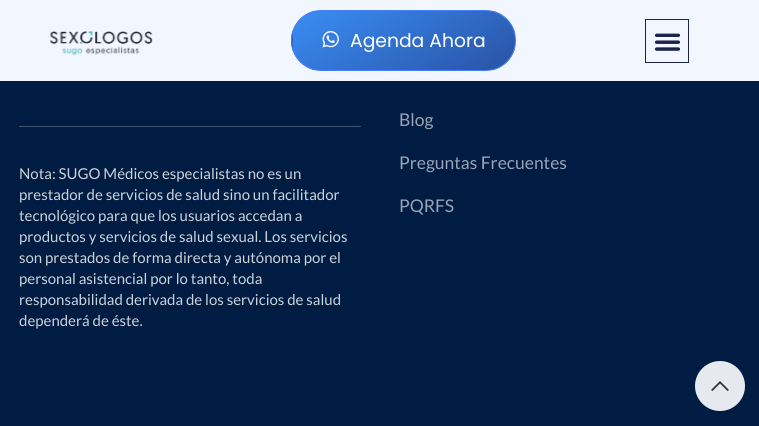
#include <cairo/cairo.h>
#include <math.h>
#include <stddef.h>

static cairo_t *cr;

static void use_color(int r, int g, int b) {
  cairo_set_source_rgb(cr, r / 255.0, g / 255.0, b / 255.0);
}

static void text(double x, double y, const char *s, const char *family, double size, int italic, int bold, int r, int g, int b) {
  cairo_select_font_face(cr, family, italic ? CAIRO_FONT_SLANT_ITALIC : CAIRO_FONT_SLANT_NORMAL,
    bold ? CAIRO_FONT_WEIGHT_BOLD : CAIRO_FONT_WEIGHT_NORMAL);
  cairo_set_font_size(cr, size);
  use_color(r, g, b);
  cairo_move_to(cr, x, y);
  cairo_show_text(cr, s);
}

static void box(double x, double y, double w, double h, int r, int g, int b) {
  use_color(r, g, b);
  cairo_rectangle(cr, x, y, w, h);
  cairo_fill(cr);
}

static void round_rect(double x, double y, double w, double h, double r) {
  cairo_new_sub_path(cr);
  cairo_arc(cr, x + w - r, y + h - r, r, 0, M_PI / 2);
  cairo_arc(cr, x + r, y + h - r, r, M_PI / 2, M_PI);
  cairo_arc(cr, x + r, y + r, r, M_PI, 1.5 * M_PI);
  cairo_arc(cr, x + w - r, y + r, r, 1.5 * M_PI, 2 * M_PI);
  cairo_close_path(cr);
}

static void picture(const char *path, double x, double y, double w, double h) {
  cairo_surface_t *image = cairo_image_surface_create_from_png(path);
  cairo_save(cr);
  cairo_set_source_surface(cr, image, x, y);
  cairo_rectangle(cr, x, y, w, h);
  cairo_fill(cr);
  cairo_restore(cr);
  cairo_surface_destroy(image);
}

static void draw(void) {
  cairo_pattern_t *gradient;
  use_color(0, 28, 67);
  cairo_paint(cr);
  box(0, 0, 759, 81, 242, 247, 255);
  picture("img_01.png", 49, 31, 104, 25);
  cairo_save(cr);
  round_rect(291, 10, 225, 61, 30.5);
  cairo_clip(cr);
  gradient = cairo_pattern_create_linear(141, -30, 222, 111);
  cairo_pattern_add_color_stop_rgba(gradient, 0, 0.227, 0.557, 0.965, 1);
  cairo_pattern_add_color_stop_rgba(gradient, 1, 0.161, 0.322, 0.643, 1);
  cairo_set_source(cr, gradient);
  cairo_pattern_destroy(gradient);
  cairo_rectangle(cr, 291, 30, 2, 21);
  cairo_fill(cr);
  gradient = cairo_pattern_create_linear(363, -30, 444, 111);
  cairo_pattern_add_color_stop_rgba(gradient, 0, 0.227, 0.557, 0.965, 1);
  cairo_pattern_add_color_stop_rgba(gradient, 1, 0.161, 0.322, 0.643, 1);
  cairo_set_source(cr, gradient);
  cairo_pattern_destroy(gradient);
  cairo_rectangle(cr, 293, 11, 222, 59);
  cairo_fill(cr);
  cairo_restore(cr);
  round_rect(291.5, 10.5, 224, 60, 30);
  use_color(70, 127, 247);
  cairo_set_line_width(cr, 1);
  cairo_stroke(cr);
  picture("img_02.png", 322, 31, 17, 17);
  cairo_rectangle(cr, 645.5, 19.5, 43, 43);
  use_color(28, 36, 75);
  cairo_stroke(cr);
  picture("img_03.png", 654, 33, 27, 18);
  box(19, 126, 342, 1, 64, 85, 114);
  cairo_set_source_rgba(cr, 1, 1, 1, 0.9);
  cairo_arc(cr, 720, 386, 25, 0, 2 * M_PI);
  cairo_fill(cr);
  use_color(51, 51, 51);
  cairo_new_path(cr);
  cairo_move_to(cr, 720, 381);
  cairo_line_to(cr, 729, 390);
  cairo_line_to(cr, 727.5, 391);
  cairo_line_to(cr, 720, 383.5);
  cairo_line_to(cr, 712.5, 391);
  cairo_line_to(cr, 711, 390);
  cairo_close_path(cr);
  cairo_fill(cr);
  text(350, 47, "Agenda Ahora", "Poppins", 18.75, 0, 0, 255, 255, 255);
  text(19, 179, "Nota: SUGO Médicos especialistas no es un", "Lato", 15, 0, 0, 204, 210, 217);
  text(19, 200, "prestador de servicios de salud sino un facilitador", "Lato", 15, 0, 0, 204, 210, 217);
  text(19, 221, "tecnológico para que los usuarios accedan a", "Lato", 15, 0, 0, 204, 210, 217);
  text(19, 242, "productos y servicios de salud sexual. Los servicios", "Lato", 15, 0, 0, 204, 210, 217);
  text(19, 263, "son prestados de forma directa y autónoma por el", "Lato", 15, 0, 0, 204, 210, 217);
  text(19, 284, "personal asistencial por lo tanto, toda", "Lato", 15, 0, 0, 204, 210, 217);
  text(19, 305, "responsabilidad derivada de los servicios de salud", "Lato", 15, 0, 0, 204, 210, 217);
  text(19, 326, "dependerá de éste.", "Lato", 15, 0, 0, 204, 210, 217);
  text(399, 126, "Blog", "Lato", 17.5, 0, 0, 153, 164, 180);
  text(399, 169, "Preguntas Frecuentes", "Lato", 17.5, 0, 0, 153, 164, 180);
  text(399, 212, "PQRFS", "Lato", 17.5, 0, 0, 153, 164, 180);
}

int main(void) {
  cairo_surface_t *surface = cairo_image_surface_create(CAIRO_FORMAT_RGB24, 759, 426);
  cr = cairo_create(surface);
  cairo_font_options_t *options = cairo_font_options_create();
  cairo_font_options_set_hint_metrics(options, CAIRO_HINT_METRICS_OFF);
  cairo_font_options_set_hint_style(options, CAIRO_HINT_STYLE_NONE);
  cairo_set_font_options(cr, options);
  cairo_set_miter_limit(cr, 4);
  draw();
  cairo_surface_write_to_png(surface, "out.png");
  cairo_font_options_destroy(options);
  cairo_destroy(cr);
  cairo_surface_destroy(surface);
  return 0;
}
